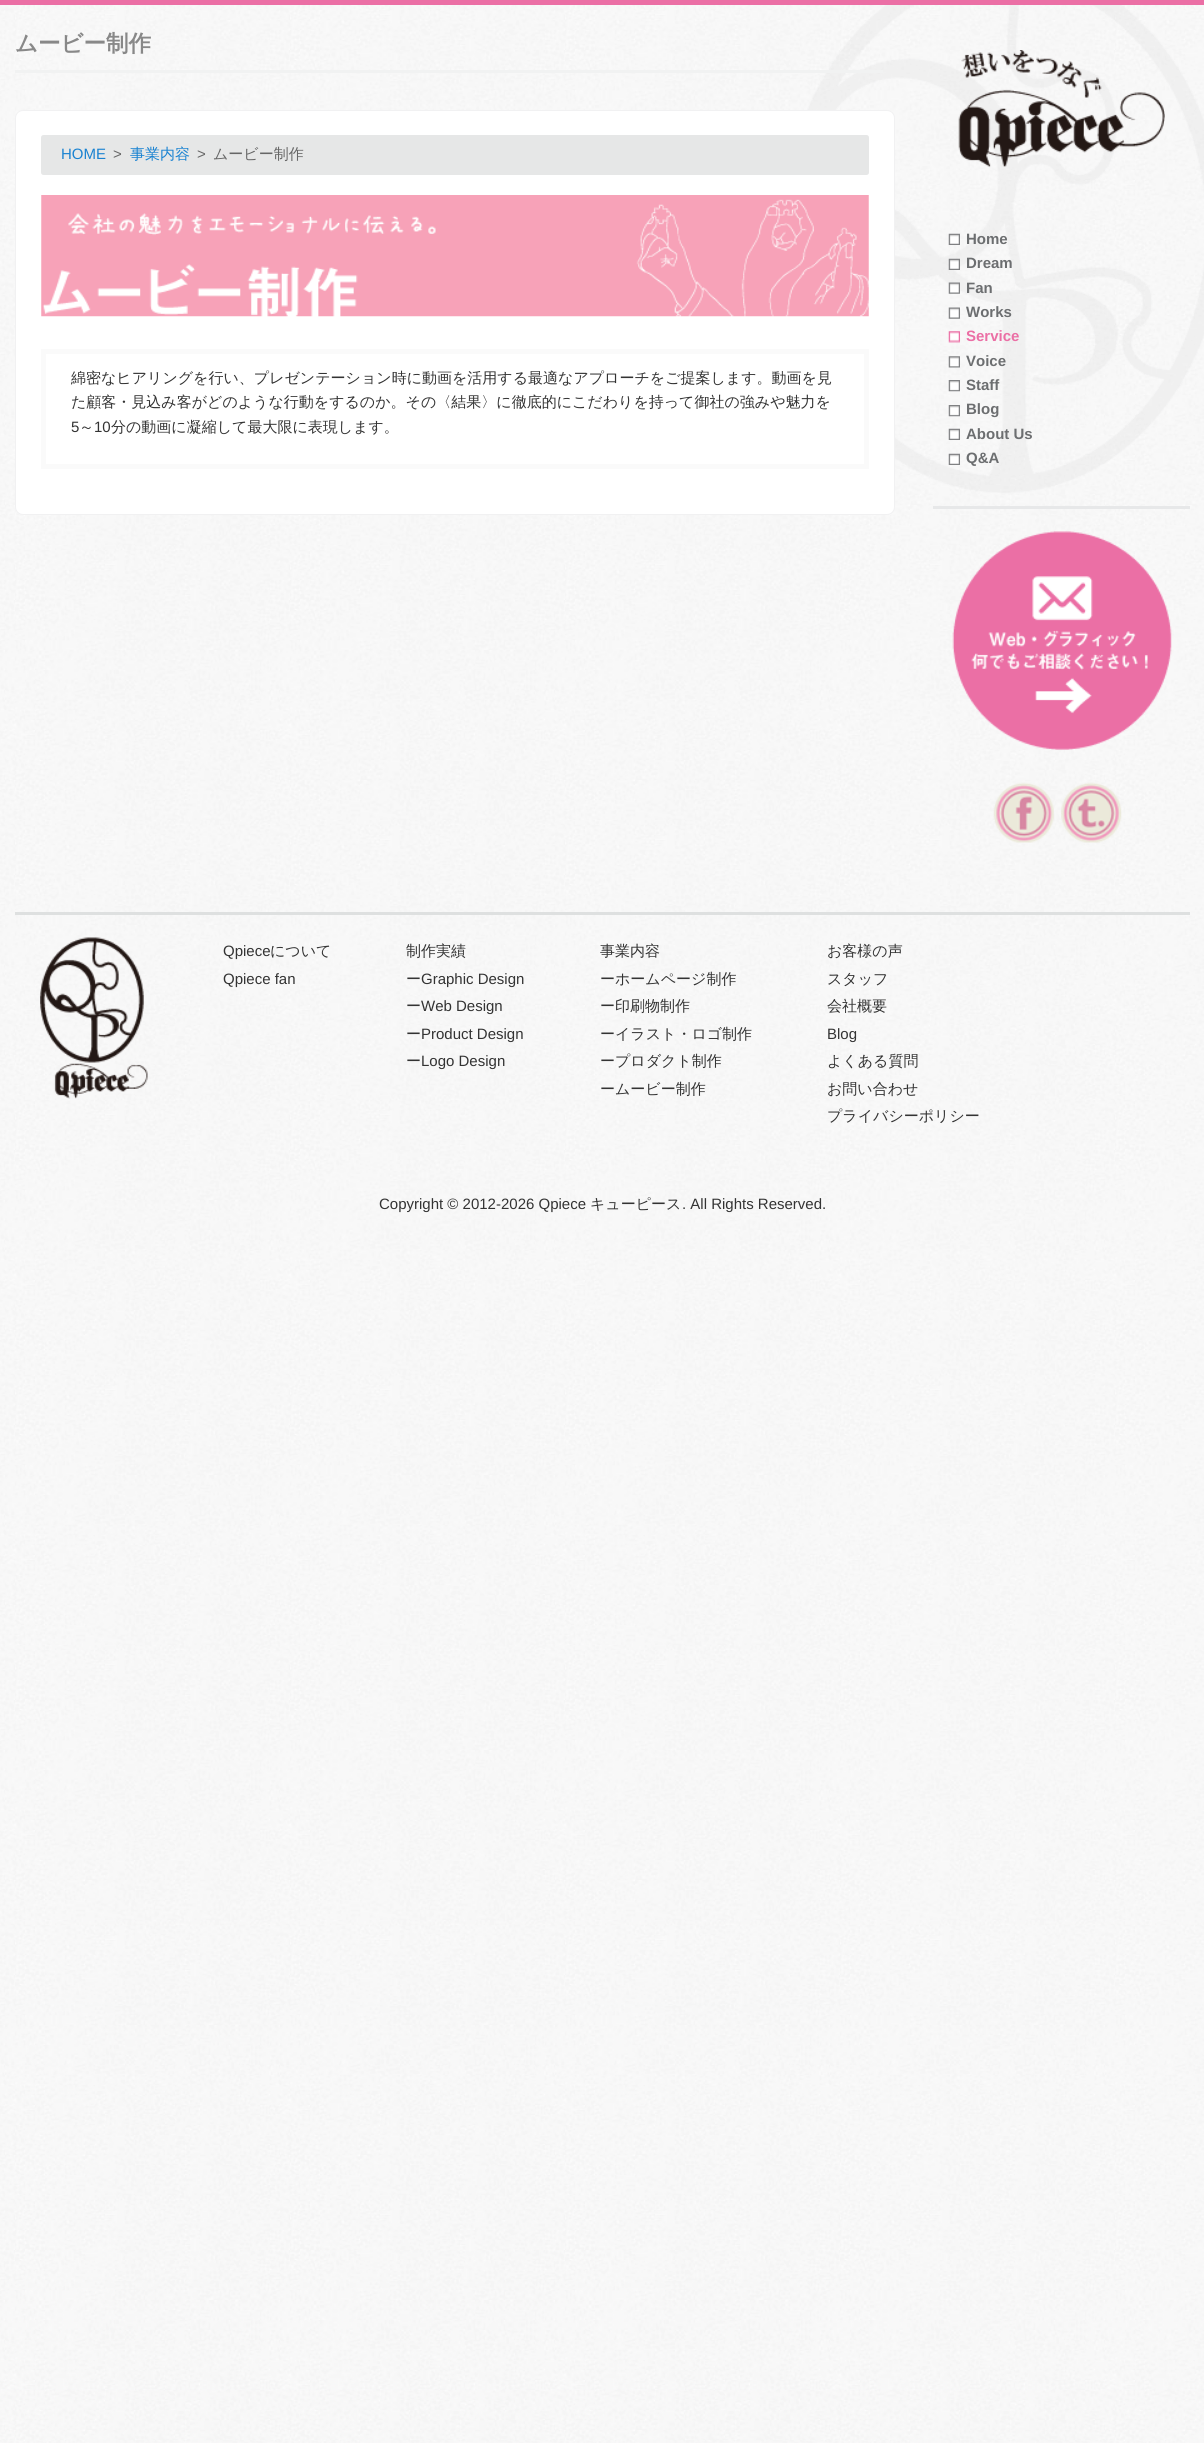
#include <cairo/cairo.h>
#include <math.h>
#include <stddef.h>

static cairo_t *cr;

static void use_color(int r, int g, int b) {
  cairo_set_source_rgb(cr, r / 255.0, g / 255.0, b / 255.0);
}

static void text(double x, double y, const char *s, const char *family, double size, int italic, int bold, int r, int g, int b) {
  cairo_select_font_face(cr, family, italic ? CAIRO_FONT_SLANT_ITALIC : CAIRO_FONT_SLANT_NORMAL,
    bold ? CAIRO_FONT_WEIGHT_BOLD : CAIRO_FONT_WEIGHT_NORMAL);
  cairo_set_font_size(cr, size);
  use_color(r, g, b);
  cairo_move_to(cr, x, y);
  cairo_show_text(cr, s);
}

static void box(double x, double y, double w, double h, int r, int g, int b) {
  use_color(r, g, b);
  cairo_rectangle(cr, x, y, w, h);
  cairo_fill(cr);
}

static void round_rect(double x, double y, double w, double h, double r) {
  cairo_new_sub_path(cr);
  cairo_arc(cr, x + w - r, y + h - r, r, 0, M_PI / 2);
  cairo_arc(cr, x + r, y + h - r, r, M_PI / 2, M_PI);
  cairo_arc(cr, x + r, y + r, r, M_PI, 1.5 * M_PI);
  cairo_arc(cr, x + w - r, y + r, r, 1.5 * M_PI, 2 * M_PI);
  cairo_close_path(cr);
}

static void picture(const char *path, double x, double y, double w, double h) {
  cairo_surface_t *image = cairo_image_surface_create_from_png(path);
  cairo_save(cr);
  cairo_set_source_surface(cr, image, x, y);
  cairo_rectangle(cr, x, y, w, h);
  cairo_fill(cr);
  cairo_restore(cr);
  cairo_surface_destroy(image);
}

static void draw(void) {
  use_color(255, 255, 255);
  cairo_paint(cr);
  picture("img_01.png", 0, 5, 1204, 2438);
  box(0, 0, 1204, 5, 235, 111, 165);
  picture("img_02.png", 807, 5, 397, 488);
  box(15, 70, 868, 3, 241, 242, 242);
  use_color(255, 255, 255);
  round_rect(15.5, 110.5, 879, 404, 7.5);
  cairo_fill_preserve(cr);
  use_color(241, 241, 242);
  cairo_set_line_width(cr, 1);
  cairo_stroke(cr);
  use_color(230, 231, 231);
  round_rect(41, 135, 828, 40, 2.5);
  cairo_fill(cr);
  picture("img_03.png", 41, 195, 828, 122);
  cairo_rectangle(cr, 43.5, 351.5, 823, 115);
  use_color(250, 250, 250);
  cairo_set_line_width(cr, 5);
  cairo_stroke(cr);
  picture("img_04.png", 958, 50, 207, 118);
  box(933, 506, 257, 3, 231, 232, 233);
  picture("img_05.png", 948, 233, 12, 12);
  picture("img_06.png", 948, 258, 12, 12);
  picture("img_07.png", 948, 282, 12, 12);
  picture("img_08.png", 948, 307, 12, 12);
  picture("img_09.png", 948, 331, 12, 12);
  picture("img_10.png", 948, 356, 12, 12);
  picture("img_11.png", 948, 380, 12, 12);
  picture("img_12.png", 948, 405, 12, 12);
  picture("img_13.png", 948, 428, 12, 12);
  picture("img_14.png", 948, 453, 12, 12);
  picture("img_15.png", 952, 531, 220, 219);
  picture("img_16.png", 993, 782, 61, 61);
  picture("img_17.png", 1061, 782, 61, 61);
  box(15, 912, 1175, 3, 222, 224, 224);
  picture("img_18.png", 40, 937, 108, 162);
  text(15, 51, "ムービー制作", "WenQuanYi Zen Hei", 22.5, 0, 1, 136, 136, 136);
  text(61, 159, "HOME", "Liberation Sans", 15, 0, 0, 25, 130, 209);
  text(113, 159, ">", "Liberation Sans", 15, 0, 0, 102, 102, 102);
  text(130, 159, "事業内容", "WenQuanYi Zen Hei Medium", 15, 0, 0, 25, 130, 209);
  text(197, 159, ">", "Liberation Sans", 15, 0, 0, 102, 102, 102);
  text(213, 159, "ムービー制作", "WenQuanYi Zen Hei Medium", 15, 0, 0, 102, 102, 102);
  text(71, 383, "綿密なヒアリングを行い、プレゼンテーション時に動画を活用する最適なアプローチをご提案します。動画を見", "WenQuanYi Zen Hei Medium", 15, 0, 0, 51, 51, 51);
  text(71, 407, "た顧客・見込み客がどのような行動をするのか。その〈結果〉に徹底的にこだわりを持って御社の強みや魅力を", "WenQuanYi Zen Hei Medium", 15, 0, 0, 51, 51, 51);
  text(71, 432, "5", "Liberation Sans", 15, 0, 0, 51, 51, 51);
  text(79, 432, "～", "WenQuanYi Zen Hei Medium", 15, 0, 0, 51, 51, 51);
  text(94, 432, "10", "Liberation Sans", 15, 0, 0, 51, 51, 51);
  text(111, 432, "分の動画に凝縮して最大限に表現します。", "WenQuanYi Zen Hei Medium", 15, 0, 0, 51, 51, 51);
  text(966, 244, "Home", "Liberation Sans", 15, 0, 1, 108, 110, 112);
  text(966, 268, "Dream", "Liberation Sans", 15, 0, 1, 108, 110, 112);
  text(966, 293, "Fan", "Liberation Sans", 15, 0, 1, 108, 110, 112);
  text(966, 317, "Works", "Liberation Sans", 15, 0, 1, 108, 110, 112);
  text(966, 341, "Service", "Liberation Sans", 15, 0, 1, 235, 111, 165);
  text(966, 366, "Voice", "Liberation Sans", 15, 0, 1, 108, 110, 112);
  text(966, 390, "Staff", "Liberation Sans", 15, 0, 1, 108, 110, 112);
  text(966, 414, "Blog", "Liberation Sans", 15, 0, 1, 108, 110, 112);
  text(966, 439, "About Us", "Liberation Sans", 15, 0, 1, 108, 110, 112);
  text(966, 463, "Q&A", "Liberation Sans", 15, 0, 1, 108, 110, 112);
  text(223, 956, "Qpiece", "Liberation Sans", 15, 0, 0, 51, 51, 51);
  text(270, 956, "について", "WenQuanYi Zen Hei Medium", 15, 0, 0, 51, 51, 51);
  text(223, 984, "Qpiece fan", "Liberation Sans", 15, 0, 0, 51, 51, 51);
  text(406, 956, "制作実績", "WenQuanYi Zen Hei Medium", 15, 0, 0, 51, 51, 51);
  text(406, 984, "ー", "WenQuanYi Zen Hei Medium", 15, 0, 0, 51, 51, 51);
  text(421, 984, "Graphic Design", "Liberation Sans", 15, 0, 0, 51, 51, 51);
  text(406, 1011, "ー", "WenQuanYi Zen Hei Medium", 15, 0, 0, 51, 51, 51);
  text(421, 1011, "Web Design", "Liberation Sans", 15, 0, 0, 51, 51, 51);
  text(406, 1039, "ー", "WenQuanYi Zen Hei Medium", 15, 0, 0, 51, 51, 51);
  text(421, 1039, "Product Design", "Liberation Sans", 15, 0, 0, 51, 51, 51);
  text(406, 1066, "ー", "WenQuanYi Zen Hei Medium", 15, 0, 0, 51, 51, 51);
  text(421, 1066, "Logo Design", "Liberation Sans", 15, 0, 0, 51, 51, 51);
  text(600, 956, "事業内容", "WenQuanYi Zen Hei Medium", 15, 0, 0, 51, 51, 51);
  text(600, 984, "ーホームページ制作", "WenQuanYi Zen Hei Medium", 15, 0, 0, 51, 51, 51);
  text(600, 1011, "ー印刷物制作", "WenQuanYi Zen Hei Medium", 15, 0, 0, 51, 51, 51);
  text(600, 1039, "ーイラスト・ロゴ制作", "WenQuanYi Zen Hei Medium", 15, 0, 0, 51, 51, 51);
  text(600, 1066, "ープロダクト制作", "WenQuanYi Zen Hei Medium", 15, 0, 0, 51, 51, 51);
  text(600, 1094, "ームービー制作", "WenQuanYi Zen Hei Medium", 15, 0, 0, 51, 51, 51);
  text(827, 956, "お客様の声", "WenQuanYi Zen Hei Medium", 15, 0, 0, 51, 51, 51);
  text(827, 984, "スタッフ", "WenQuanYi Zen Hei Medium", 15, 0, 0, 51, 51, 51);
  text(827, 1011, "会社概要", "WenQuanYi Zen Hei Medium", 15, 0, 0, 51, 51, 51);
  text(827, 1039, "Blog", "Liberation Sans", 15, 0, 0, 51, 51, 51);
  text(827, 1066, "よくある質問", "WenQuanYi Zen Hei Medium", 15, 0, 0, 51, 51, 51);
  text(827, 1094, "お問い合わせ", "WenQuanYi Zen Hei Medium", 15, 0, 0, 51, 51, 51);
  text(827, 1121, "プライバシーポリシー", "WenQuanYi Zen Hei Medium", 15, 0, 0, 51, 51, 51);
  text(379, 1209, "Copyright © 2012-2026 Qpiece", "Liberation Sans", 15, 0, 0, 51, 51, 51);
  text(590, 1209, "キューピース", "WenQuanYi Zen Hei Medium", 15, 0, 0, 51, 51, 51);
  text(682, 1209, ". All Rights Reserved.", "Liberation Sans", 15, 0, 0, 51, 51, 51);
}

int main(void) {
  cairo_surface_t *surface = cairo_image_surface_create(CAIRO_FORMAT_RGB24, 1204, 2443);
  cr = cairo_create(surface);
  cairo_font_options_t *options = cairo_font_options_create();
  cairo_font_options_set_hint_metrics(options, CAIRO_HINT_METRICS_OFF);
  cairo_font_options_set_hint_style(options, CAIRO_HINT_STYLE_NONE);
  cairo_set_font_options(cr, options);
  cairo_set_miter_limit(cr, 4);
  draw();
  cairo_surface_write_to_png(surface, "out.png");
  cairo_font_options_destroy(options);
  cairo_destroy(cr);
  cairo_surface_destroy(surface);
  return 0;
}
